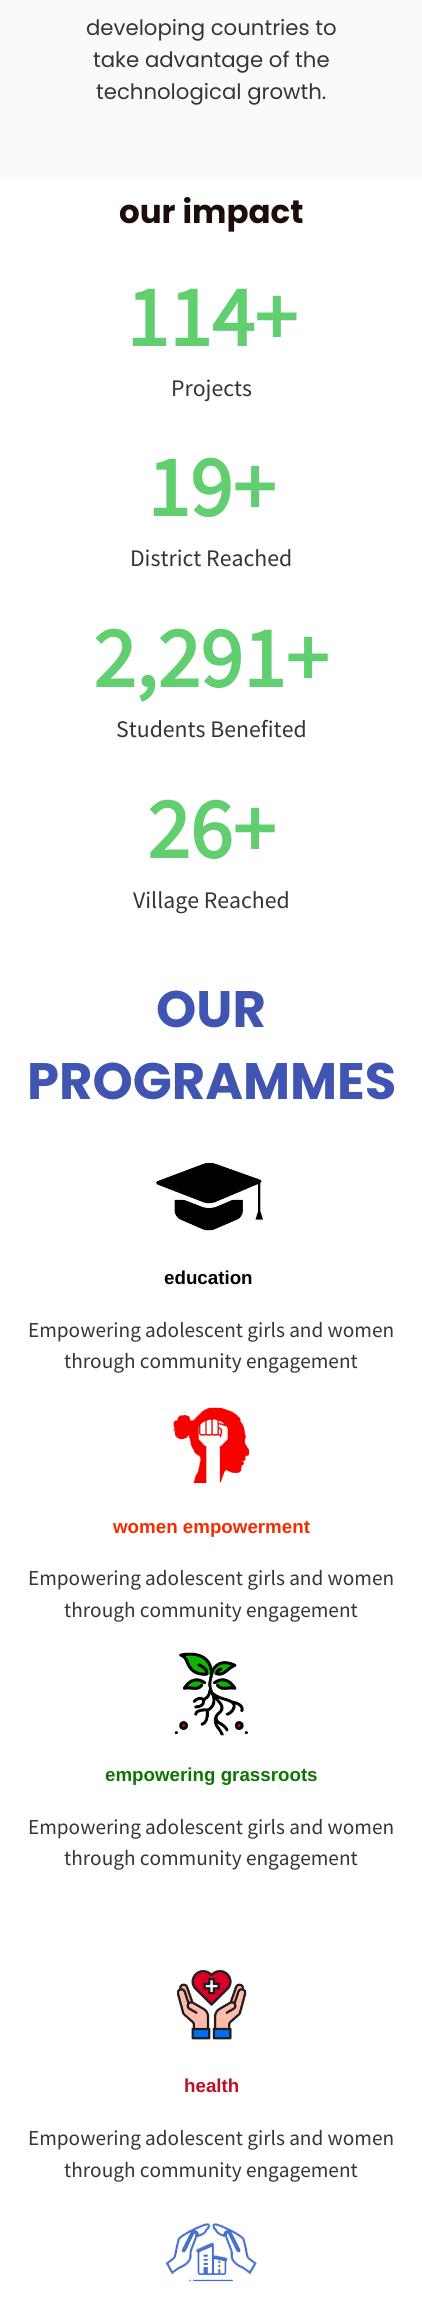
#include <cairo/cairo.h>
#include <math.h>
#include <stddef.h>

static cairo_t *cr;

static void use_color(int r, int g, int b) {
  cairo_set_source_rgb(cr, r / 255.0, g / 255.0, b / 255.0);
}

static void text(double x, double y, const char *s, const char *family, double size, int italic, int bold, int r, int g, int b) {
  cairo_select_font_face(cr, family, italic ? CAIRO_FONT_SLANT_ITALIC : CAIRO_FONT_SLANT_NORMAL,
    bold ? CAIRO_FONT_WEIGHT_BOLD : CAIRO_FONT_WEIGHT_NORMAL);
  cairo_set_font_size(cr, size);
  use_color(r, g, b);
  cairo_move_to(cr, x, y);
  cairo_show_text(cr, s);
}

static void box(double x, double y, double w, double h, int r, int g, int b) {
  use_color(r, g, b);
  cairo_rectangle(cr, x, y, w, h);
  cairo_fill(cr);
}

static void picture(const char *path, double x, double y, double w, double h) {
  cairo_surface_t *image = cairo_image_surface_create_from_png(path);
  cairo_save(cr);
  cairo_set_source_surface(cr, image, x, y);
  cairo_rectangle(cr, x, y, w, h);
  cairo_fill(cr);
  cairo_restore(cr);
  cairo_surface_destroy(image);
}

static void draw(void) {
  use_color(255, 255, 255);
  cairo_paint(cr);
  box(0, 0, 422, 180, 251, 249, 249);
  picture("img_01.png", 156, 1162, 107, 69);
  picture("img_02.png", 173, 1407, 76, 76);
  picture("img_03.png", 174, 1652, 74, 84);
  picture("img_04.png", 177, 1969, 70, 71);
  picture("img_05.png", 165, 2223, 92, 59);
  text(86, 35, "developing countries to", "Poppins", 21.25, 0, 0, 53, 53, 53);
  text(93, 67, "take advantage of the", "Poppins", 21.25, 0, 0, 53, 53, 53);
  text(96, 99, "technological growth.", "Poppins", 21.25, 0, 0, 53, 53, 53);
  text(119, 223, "our impact", "Poppins", 32.5, 0, 1, 28, 13, 10);
  text(126, 346, "114+", "Source Sans Pro", 86, 0, 1, 97, 206, 112);
  text(171, 396, "Projects", "Source Sans Pro", 23.75, 0, 0, 53, 53, 53);
  text(147, 516, "19+", "Source Sans Pro", 86, 0, 1, 97, 206, 112);
  text(130, 566, "District Reached", "Source Sans Pro", 23.75, 0, 0, 53, 53, 53);
  text(93, 687, "2,291+", "Source Sans Pro", 86, 0, 1, 97, 206, 112);
  text(116, 737, "Students Benefited", "Source Sans Pro", 23.75, 0, 0, 53, 53, 53);
  text(147, 858, "26+", "Source Sans Pro", 86, 0, 1, 97, 206, 112);
  text(133, 908, "Village Reached", "Source Sans Pro", 23.75, 0, 0, 53, 53, 53);
  text(156, 1027, "OUR", "Poppins", 51.25, 0, 1, 64, 84, 178);
  text(27, 1099, "PROGRAMMES", "Poppins", 51.25, 0, 1, 64, 84, 178);
  text(164, 1284, "education", "Liberation Sans", 18.75, 0, 1, 0, 0, 0);
  text(28, 1337, "Empowering adolescent girls and women", "Source Sans Pro", 21.25, 0, 0, 53, 53, 53);
  text(64, 1368, "through community engagement", "Source Sans Pro", 21.25, 0, 0, 53, 53, 53);
  text(113, 1533, "women empowerment", "Liberation Sans", 18.75, 0, 1, 247, 42, 0);
  text(28, 1585, "Empowering adolescent girls and women", "Source Sans Pro", 21.25, 0, 0, 53, 53, 53);
  text(64, 1617, "through community engagement", "Source Sans Pro", 21.25, 0, 0, 53, 53, 53);
  text(105, 1781, "empowering grassroots", "Liberation Sans", 18.75, 0, 1, 14, 117, 4);
  text(28, 1834, "Empowering adolescent girls and women", "Source Sans Pro", 21.25, 0, 0, 53, 53, 53);
  text(64, 1865, "through community engagement", "Source Sans Pro", 21.25, 0, 0, 53, 53, 53);
  text(184, 2092, "health", "Liberation Sans", 18.75, 0, 1, 193, 13, 39);
  text(28, 2145, "Empowering adolescent girls and women", "Source Sans Pro", 21.25, 0, 0, 53, 53, 53);
  text(64, 2177, "through community engagement", "Source Sans Pro", 21.25, 0, 0, 53, 53, 53);
}

int main(void) {
  cairo_surface_t *surface = cairo_image_surface_create(CAIRO_FORMAT_RGB24, 422, 2310);
  cr = cairo_create(surface);
  cairo_font_options_t *options = cairo_font_options_create();
  cairo_font_options_set_hint_metrics(options, CAIRO_HINT_METRICS_OFF);
  cairo_font_options_set_hint_style(options, CAIRO_HINT_STYLE_NONE);
  cairo_set_font_options(cr, options);
  cairo_set_miter_limit(cr, 4);
  draw();
  cairo_surface_write_to_png(surface, "out.png");
  cairo_font_options_destroy(options);
  cairo_destroy(cr);
  cairo_surface_destroy(surface);
  return 0;
}
